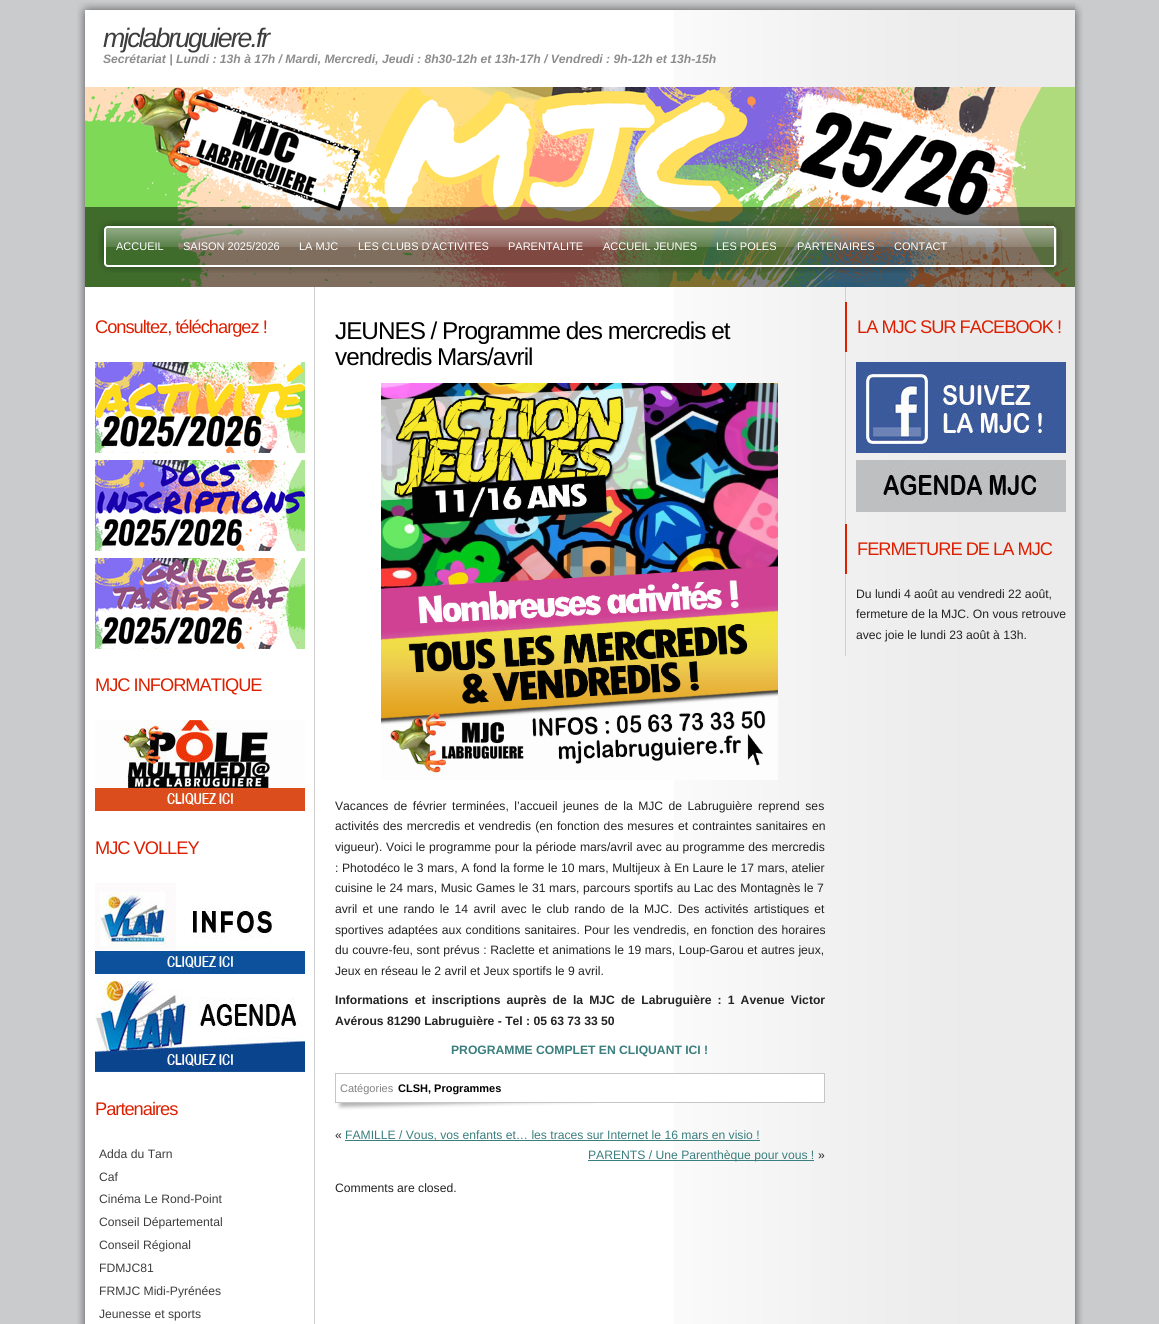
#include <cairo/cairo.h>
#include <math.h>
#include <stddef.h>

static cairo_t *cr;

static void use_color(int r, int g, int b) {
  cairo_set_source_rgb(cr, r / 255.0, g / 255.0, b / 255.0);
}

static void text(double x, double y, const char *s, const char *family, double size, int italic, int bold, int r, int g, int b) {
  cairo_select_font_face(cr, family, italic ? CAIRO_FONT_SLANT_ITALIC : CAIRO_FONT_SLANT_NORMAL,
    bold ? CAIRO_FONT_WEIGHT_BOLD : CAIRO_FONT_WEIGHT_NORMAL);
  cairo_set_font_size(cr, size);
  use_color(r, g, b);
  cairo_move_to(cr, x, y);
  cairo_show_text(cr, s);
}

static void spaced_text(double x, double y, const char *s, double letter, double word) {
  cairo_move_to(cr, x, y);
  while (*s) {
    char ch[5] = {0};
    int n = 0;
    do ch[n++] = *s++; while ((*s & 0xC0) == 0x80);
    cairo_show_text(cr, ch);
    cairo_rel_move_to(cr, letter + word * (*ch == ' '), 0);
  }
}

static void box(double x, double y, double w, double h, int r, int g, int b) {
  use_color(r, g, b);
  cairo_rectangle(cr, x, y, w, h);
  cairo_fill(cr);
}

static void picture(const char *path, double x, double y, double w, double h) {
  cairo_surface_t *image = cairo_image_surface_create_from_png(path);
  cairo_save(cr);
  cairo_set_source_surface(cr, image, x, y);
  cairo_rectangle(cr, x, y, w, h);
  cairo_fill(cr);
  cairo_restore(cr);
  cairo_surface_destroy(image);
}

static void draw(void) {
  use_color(202, 203, 205);
  cairo_paint(cr);
  picture("img_01.png", 1075, 3, 8, 284);
  picture("img_02.png", 77, 2, 998, 285);
  box(85, 10, 589, 77, 255, 255, 255);
  picture("img_03.png", 674, 10, 401, 77);
  picture("img_04.png", 85, 87, 990, 200);
  cairo_set_source_rgba(cr, 0, 0, 0, 0.5);
  cairo_rectangle(cr, 85, 207, 990, 80);
  cairo_fill(cr);
  picture("img_05.png", 98, 220, 956, 53);
  picture("img_06.png", 1054, 222, 9, 49);
  picture("img_07.png", 1075, 287, 8, 1037);
  picture("img_08.png", 77, 287, 8, 1037);
  box(85, 287, 589, 1037, 255, 255, 255);
  picture("img_09.png", 674, 287, 401, 1037);
  box(314, 287, 1, 1037, 208, 208, 208);
  picture("img_10.png", 95, 362, 210, 91);
  picture("img_11.png", 95, 460, 210, 91);
  picture("img_12.png", 95, 558, 210, 91);
  picture("img_13.png", 95, 720, 210, 91);
  picture("img_14.png", 95, 883, 210, 91);
  picture("img_15.png", 95, 981, 210, 91);
  picture("img_16.png", 381, 383, 397, 397);
  picture("img_17.png", 337, 1103, 257, 7);
  box(674, 1074, 150, 28, 255, 255, 255);
  cairo_rectangle(cr, 335.5, 1073.5, 489, 29);
  use_color(198, 198, 198);
  cairo_set_line_width(cr, 1);
  cairo_stroke(cr);
  box(345, 1140, 415, 1, 58, 126, 125);
  box(588, 1160, 226, 1, 58, 126, 125);
  box(845, 287, 1, 369, 208, 208, 208);
  box(845, 302, 2, 50, 221, 31, 0);
  picture("img_18.png", 856, 362, 210, 91);
  picture("img_19.png", 856, 460, 210, 52);
  box(845, 524, 2, 50, 221, 31, 0);
  cairo_select_font_face(cr, "Liberation Sans", CAIRO_FONT_SLANT_ITALIC, CAIRO_FONT_WEIGHT_NORMAL);
  cairo_set_font_size(cr, 26.75);
  use_color(61, 61, 61);
  spaced_text(103, 47, "mjclabruguiere.fr", -2, 0);
  text(103, 63, "Secrétariat | Lundi : 13h à 17h / Mardi, Mercredi, Jeudi : 8h30-12h et 13h-17h / Vendredi : 9h-12h et 13h-15h", "Liberation Sans", 12.15, 1, 1, 141, 141, 141);
  text(116, 250, "ACCUEIL", "Liberation Sans", 11, 0, 0, 255, 255, 255);
  text(183, 250, "SAISON 2025/2026", "Liberation Sans", 11, 0, 0, 255, 255, 255);
  text(299, 250, "LA MJC", "Liberation Sans", 11, 0, 0, 255, 255, 255);
  text(358, 250, "LES CLUBS D’ACTIVITES", "Liberation Sans", 11, 0, 0, 255, 255, 255);
  text(508, 250, "PARENTALITE", "Liberation Sans", 11, 0, 0, 255, 255, 255);
  text(603, 250, "ACCUEIL JEUNES", "Liberation Sans", 11, 0, 0, 255, 255, 255);
  text(716, 250, "LES POLES", "Liberation Sans", 11, 0, 0, 255, 255, 255);
  text(797, 250, "PARTENAIRES", "Liberation Sans", 11, 0, 0, 255, 255, 255);
  text(894, 250, "CONTACT", "Liberation Sans", 11, 0, 0, 255, 255, 255);
  cairo_set_font_size(cr, 18.25);
  use_color(221, 31, 0);
  spaced_text(95, 333, "Consultez, téléchargez !", -1, 0);
  spaced_text(95, 691, "MJC INFORMATIQUE", -1, 0);
  spaced_text(95, 854, "MJC VOLLEY", -1, 0);
  spaced_text(95, 1115, "Partenaires", -1, 0);
  text(99, 1158, "Adda du Tarn", "Liberation Sans", 12.15, 0, 0, 61, 61, 61);
  text(99, 1181, "Caf", "Liberation Sans", 12.15, 0, 0, 61, 61, 61);
  text(99, 1203, "Cinéma Le Rond-Point", "Liberation Sans", 12.15, 0, 0, 61, 61, 61);
  text(99, 1226, "Conseil Départemental", "Liberation Sans", 12.15, 0, 0, 61, 61, 61);
  text(99, 1249, "Conseil Régional", "Liberation Sans", 12.15, 0, 0, 61, 61, 61);
  text(99, 1272, "FDMJC81", "Liberation Sans", 12.15, 0, 0, 61, 61, 61);
  text(99, 1295, "FRMJC Midi-Pyrénées", "Liberation Sans", 12.15, 0, 0, 61, 61, 61);
  text(99, 1318, "Jeunesse et sports", "Liberation Sans", 12.15, 0, 0, 61, 61, 61);
  cairo_set_font_size(cr, 24.3);
  use_color(0, 0, 0);
  spaced_text(335, 339, "JEUNES / Programme des mercredis et", -1, 0);
  spaced_text(335, 365, "vendredis Mars/avril", -1, 0);
  cairo_set_font_size(cr, 12.15);
  use_color(35, 35, 35);
  spaced_text(335, 810, "Vacances de février terminées, l’accueil jeunes de la MJC de Labruguière reprend ses", 0, 2.1);
  spaced_text(335, 830, "activités des mercredis et vendredis (en fonction des mesures et contraintes sanitaires en", 0, 0.75);
  spaced_text(335, 851, "vigueur). Voici le programme pour la période mars/avril avec au programme des mercredis", 0, 0.25);
  spaced_text(335, 872, ": Photodéco le 3 mars, A fond la forme le 10 mars, Multijeux à En Laure le 17 mars, atelier", 0, 0.25);
  spaced_text(335, 892, "cuisine le 24 mars, Music Games le 31 mars, parcours sportifs au Lac des Montagnès le 7", 0, 0.25);
  spaced_text(335, 913, "avril et une rando le 14 avril avec le club rando de la MJC. Des activités artistiques et", 0, 1.9);
  spaced_text(335, 934, "sportives adaptées aux conditions sanitaires. Pour les vendredis, en fonction des horaires", 0, 0.75);
  spaced_text(335, 954, "du couvre-feu, sont prévus : Raclette et animations le 19 mars, Loup-Garou et autres jeux,", 0, 0.25);
  text(335, 975, "Jeux en réseau le 2 avril et Jeux sportifs le 9 avril.", "Liberation Sans", 12.15, 0, 0, 35, 35, 35);
  cairo_select_font_face(cr, "Liberation Sans", CAIRO_FONT_SLANT_NORMAL, CAIRO_FONT_WEIGHT_BOLD);
  spaced_text(335, 1004, "Informations et inscriptions auprès de la MJC de Labruguière : 1 Avenue Victor", 0, 2.75);
  text(335, 1025, "Avérous 81290 Labruguière - Tel : 05 63 73 33 50", "Liberation Sans", 12.15, 0, 1, 35, 35, 35);
  text(451, 1054, "PROGRAMME COMPLET EN CLIQUANT ICI !", "Liberation Sans", 12.15, 0, 1, 58, 126, 125);
  text(340, 1092, "Catégories", "Liberation Sans", 11, 0, 0, 130, 130, 130);
  text(398, 1092, "CLSH, Programmes", "Liberation Sans", 11, 0, 1, 0, 0, 0);
  text(335, 1139, "«", "Liberation Sans", 12.15, 0, 0, 35, 35, 35);
  text(345, 1139, "FAMILLE / Vous, vos enfants et… les traces sur Internet le 16 mars en visio !", "Liberation Sans", 12.15, 0, 0, 58, 126, 125);
  text(588, 1159, "PARENTS / Une Parenthèque pour vous !", "Liberation Sans", 12.15, 0, 0, 58, 126, 125);
  text(818, 1159, "»", "Liberation Sans", 12.15, 0, 0, 35, 35, 35);
  text(335, 1192, "Comments are closed.", "Liberation Sans", 12.15, 0, 0, 35, 35, 35);
  cairo_set_font_size(cr, 18.25);
  use_color(221, 31, 0);
  spaced_text(857, 333, "LA MJC SUR FACEBOOK !", -1, 0);
  spaced_text(857, 555, "FERMETURE DE LA MJC", -1, 0);
  text(856, 598, "Du lundi 4 août au vendredi 22 août,", "Liberation Sans", 12.15, 0, 0, 35, 35, 35);
  text(856, 618, "fermeture de la MJC. On vous retrouve", "Liberation Sans", 12.15, 0, 0, 35, 35, 35);
  text(856, 639, "avec joie le lundi 23 août à 13h.", "Liberation Sans", 12.15, 0, 0, 35, 35, 35);
}

int main(void) {
  cairo_surface_t *surface = cairo_image_surface_create(CAIRO_FORMAT_RGB24, 1159, 1324);
  cr = cairo_create(surface);
  cairo_font_options_t *options = cairo_font_options_create();
  cairo_font_options_set_hint_metrics(options, CAIRO_HINT_METRICS_OFF);
  cairo_font_options_set_hint_style(options, CAIRO_HINT_STYLE_NONE);
  cairo_set_font_options(cr, options);
  cairo_set_miter_limit(cr, 4);
  draw();
  cairo_surface_write_to_png(surface, "out.png");
  cairo_font_options_destroy(options);
  cairo_destroy(cr);
  cairo_surface_destroy(surface);
  return 0;
}
